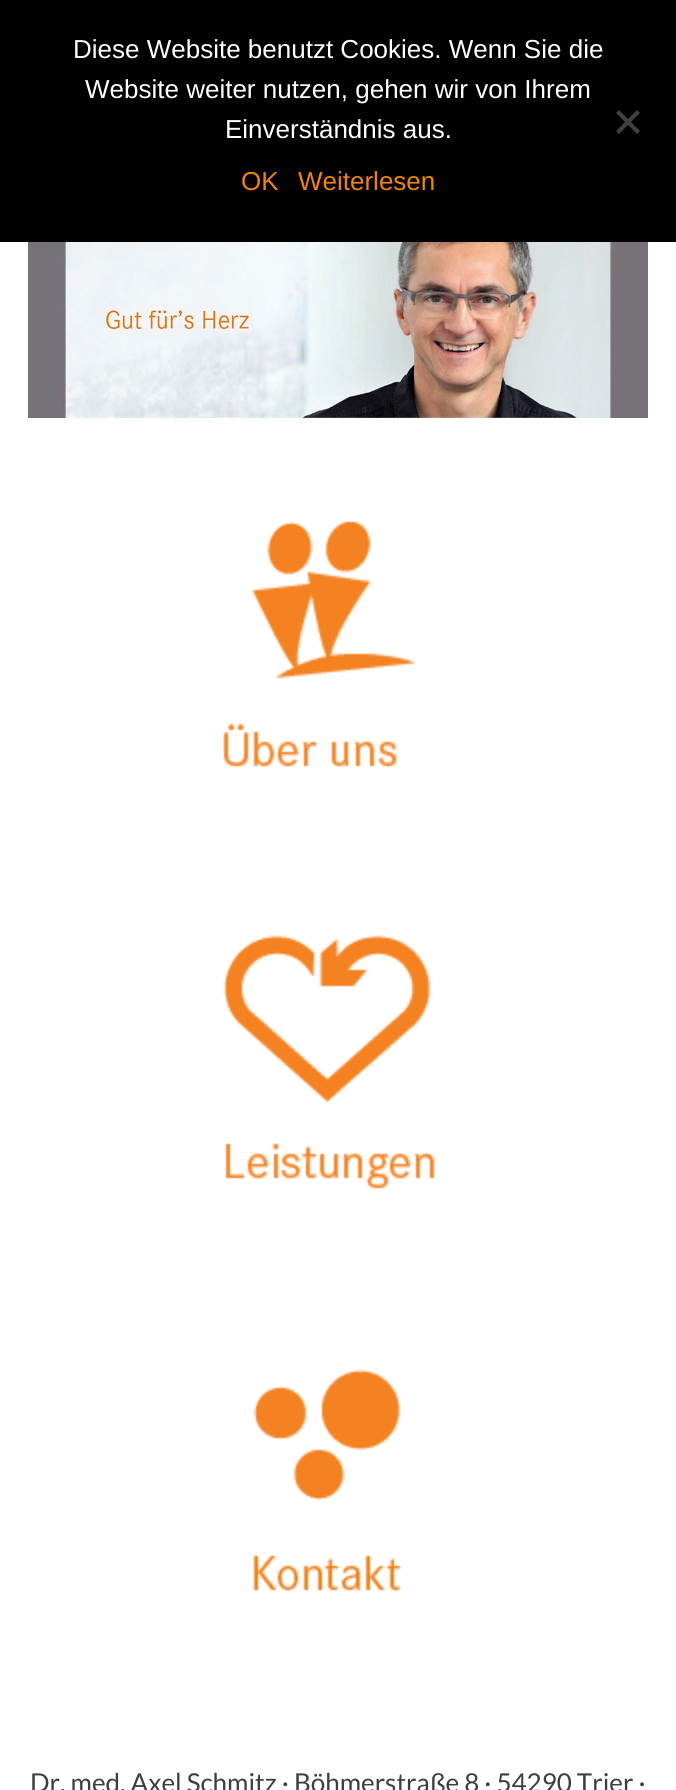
#include <cairo/cairo.h>
#include <math.h>
#include <stddef.h>

static cairo_t *cr;

static void use_color(int r, int g, int b) {
  cairo_set_source_rgb(cr, r / 255.0, g / 255.0, b / 255.0);
}

static void text(double x, double y, const char *s, const char *family, double size, int italic, int bold, int r, int g, int b) {
  cairo_select_font_face(cr, family, italic ? CAIRO_FONT_SLANT_ITALIC : CAIRO_FONT_SLANT_NORMAL,
    bold ? CAIRO_FONT_WEIGHT_BOLD : CAIRO_FONT_WEIGHT_NORMAL);
  cairo_set_font_size(cr, size);
  use_color(r, g, b);
  cairo_move_to(cr, x, y);
  cairo_show_text(cr, s);
}

static void box(double x, double y, double w, double h, int r, int g, int b) {
  use_color(r, g, b);
  cairo_rectangle(cr, x, y, w, h);
  cairo_fill(cr);
}

static void picture(const char *path, double x, double y, double w, double h) {
  cairo_surface_t *image = cairo_image_surface_create_from_png(path);
  cairo_save(cr);
  cairo_set_source_surface(cr, image, x, y);
  cairo_rectangle(cr, x, y, w, h);
  cairo_fill(cr);
  cairo_restore(cr);
  cairo_surface_destroy(image);
}

static void draw(void) {
  use_color(255, 255, 255);
  cairo_paint(cr);
  box(0, 0, 676, 242, 0, 0, 0);
  use_color(64, 64, 64);
  cairo_new_path(cr);
  cairo_move_to(cr, 637, 110);
  cairo_line_to(cr, 640, 113);
  cairo_line_to(cr, 619, 134);
  cairo_line_to(cr, 616, 131);
  cairo_close_path(cr);
  cairo_fill(cr);
  cairo_new_path(cr);
  cairo_move_to(cr, 616, 113);
  cairo_line_to(cr, 619, 110);
  cairo_line_to(cr, 640, 131);
  cairo_line_to(cr, 637, 134);
  cairo_close_path(cr);
  cairo_fill(cr);
  picture("img_01.png", 28, 242, 620, 176);
  picture("img_02.png", 223, 521, 193, 246);
  picture("img_03.png", 223, 935, 212, 254);
  picture("img_04.png", 253, 1369, 148, 222);
  text(73, 58, "Diese Website benutzt Cookies. Wenn Sie die", "Liberation Sans", 26, 0, 0, 255, 255, 255);
  text(85, 98, "Website weiter nutzen, gehen wir von Ihrem", "Liberation Sans", 26, 0, 0, 255, 255, 255);
  text(225, 138, "Einverständnis aus.", "Liberation Sans", 26, 0, 0, 255, 255, 255);
  text(241, 190, "OK", "Liberation Sans", 26, 0, 0, 240, 134, 0);
  text(298, 190, "Weiterlesen", "Liberation Sans", 26, 0, 0, 240, 134, 0);
  text(30, 1792, "Dr. med. Axel Schmitz · Böhmerstraße 8 · 54290 Trier ·", "Lato", 26, 0, 0, 62, 61, 64);
}

int main(void) {
  cairo_surface_t *surface = cairo_image_surface_create(CAIRO_FORMAT_RGB24, 676, 1790);
  cr = cairo_create(surface);
  cairo_font_options_t *options = cairo_font_options_create();
  cairo_font_options_set_hint_metrics(options, CAIRO_HINT_METRICS_OFF);
  cairo_font_options_set_hint_style(options, CAIRO_HINT_STYLE_NONE);
  cairo_set_font_options(cr, options);
  cairo_set_miter_limit(cr, 4);
  draw();
  cairo_surface_write_to_png(surface, "out.png");
  cairo_font_options_destroy(options);
  cairo_destroy(cr);
  cairo_surface_destroy(surface);
  return 0;
}
